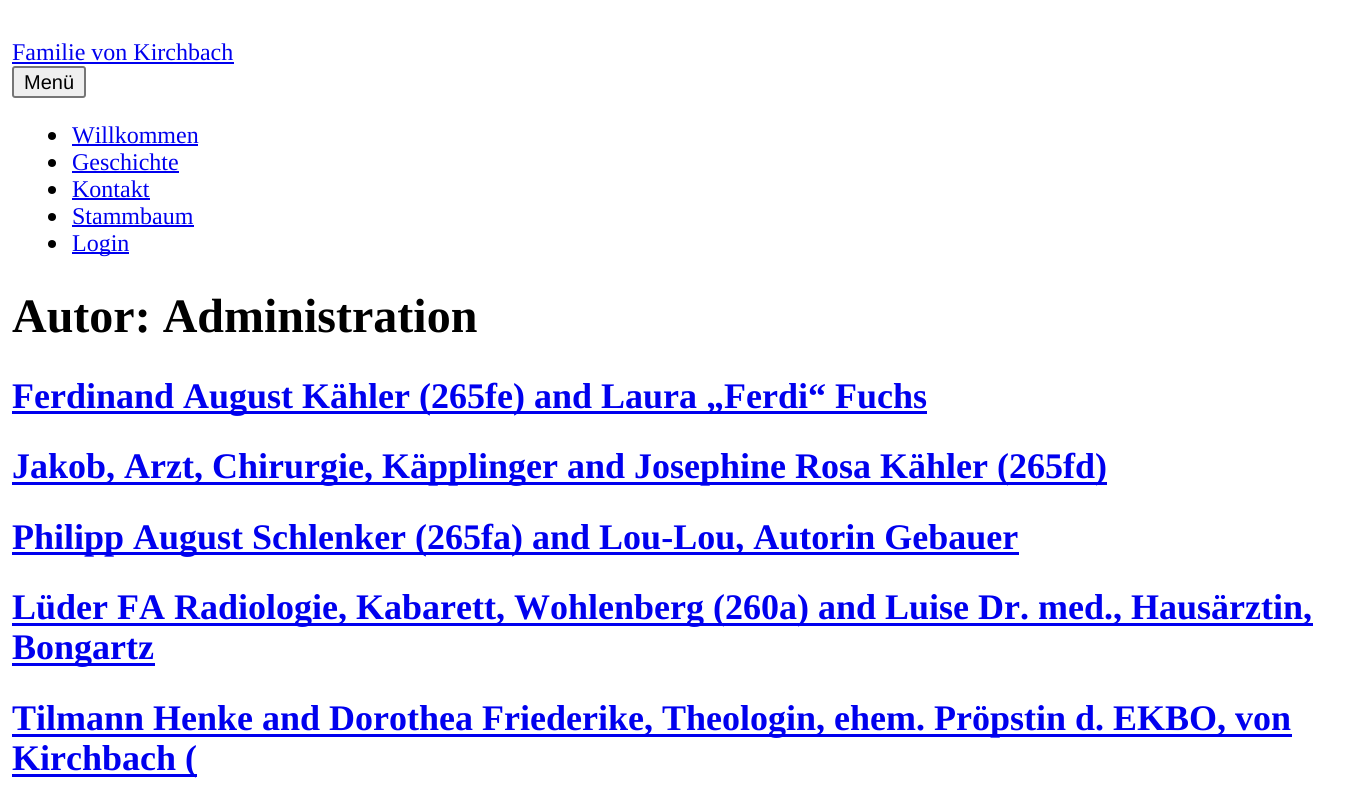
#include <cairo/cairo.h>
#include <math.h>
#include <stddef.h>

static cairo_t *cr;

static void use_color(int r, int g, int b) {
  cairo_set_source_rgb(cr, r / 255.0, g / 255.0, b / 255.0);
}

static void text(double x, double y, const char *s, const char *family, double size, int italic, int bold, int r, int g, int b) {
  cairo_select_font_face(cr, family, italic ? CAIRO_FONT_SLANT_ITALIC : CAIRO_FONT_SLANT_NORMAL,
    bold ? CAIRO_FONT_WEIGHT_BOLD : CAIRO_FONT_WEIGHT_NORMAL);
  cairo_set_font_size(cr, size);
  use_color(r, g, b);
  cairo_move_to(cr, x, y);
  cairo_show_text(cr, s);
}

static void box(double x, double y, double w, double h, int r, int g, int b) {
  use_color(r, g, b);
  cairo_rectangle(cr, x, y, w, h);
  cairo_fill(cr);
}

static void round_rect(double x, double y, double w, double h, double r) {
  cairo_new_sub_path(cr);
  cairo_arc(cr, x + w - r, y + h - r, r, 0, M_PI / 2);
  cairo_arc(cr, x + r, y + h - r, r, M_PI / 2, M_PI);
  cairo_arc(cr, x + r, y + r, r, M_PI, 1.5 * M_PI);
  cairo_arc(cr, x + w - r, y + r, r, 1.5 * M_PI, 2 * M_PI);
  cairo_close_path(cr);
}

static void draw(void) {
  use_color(255, 255, 255);
  cairo_paint(cr);
  box(12, 62, 222, 2, 0, 0, 238);
  use_color(239, 239, 239);
  round_rect(13, 67, 72, 30, 2);
  cairo_fill_preserve(cr);
  use_color(118, 118, 118);
  cairo_stroke(cr);
  use_color(0, 0, 0);
  cairo_arc(cr, 52, 136, 4, 0, 2 * M_PI);
  cairo_fill(cr);
  box(72, 144, 126, 2, 0, 0, 238);
  use_color(0, 0, 0);
  cairo_arc(cr, 52, 163, 4, 0, 2 * M_PI);
  cairo_fill(cr);
  box(72, 171, 107, 2, 0, 0, 238);
  use_color(0, 0, 0);
  cairo_arc(cr, 52, 190, 4, 0, 2 * M_PI);
  cairo_fill(cr);
  box(72, 198, 78, 2, 0, 0, 238);
  use_color(0, 0, 0);
  cairo_arc(cr, 52, 217, 4, 0, 2 * M_PI);
  cairo_fill(cr);
  box(72, 225, 122, 2, 0, 0, 238);
  use_color(0, 0, 0);
  cairo_arc(cr, 52, 244, 4, 0, 2 * M_PI);
  cairo_fill(cr);
  box(72, 252, 57, 2, 0, 0, 238);
  box(12, 411, 915, 3, 0, 0, 238);
  box(12, 482, 1095, 3, 0, 0, 238);
  box(12, 552, 1007, 3, 0, 0, 238);
  box(12, 623, 1301, 3, 0, 0, 238);
  box(12, 663, 143, 3, 0, 0, 238);
  box(12, 734, 1280, 3, 0, 0, 238);
  box(12, 774, 185, 3, 0, 0, 238);
  text(12, 60, "Familie von Kirchbach", "Liberation Serif", 24, 0, 0, 0, 0, 238);
  text(24, 89, "Menü", "Liberation Sans", 20, 0, 0, 0, 0, 0);
  text(72, 143, "Willkommen", "Liberation Serif", 24, 0, 0, 0, 0, 238);
  text(72, 170, "Geschichte", "Liberation Serif", 24, 0, 0, 0, 0, 238);
  text(72, 197, "Kontakt", "Liberation Serif", 24, 0, 0, 0, 0, 238);
  text(72, 224, "Stammbaum", "Liberation Serif", 24, 0, 0, 0, 0, 238);
  text(72, 251, "Login", "Liberation Serif", 24, 0, 0, 0, 0, 238);
  text(12, 332, "Autor: Administration", "Liberation Serif", 48, 0, 1, 0, 0, 0);
  text(12, 408, "Ferdinand August Kähler (265fe) and Laura „Ferdi“ Fuchs", "Liberation Serif", 36, 0, 1, 0, 0, 238);
  text(12, 478, "Jakob, Arzt, Chirurgie, Käpplinger and Josephine Rosa Kähler (265fd)", "Liberation Serif", 36, 0, 1, 0, 0, 238);
  text(12, 549, "Philipp August Schlenker (265fa) and Lou-Lou, Autorin Gebauer", "Liberation Serif", 36, 0, 1, 0, 0, 238);
  text(12, 619, "Lüder FA Radiologie, Kabarett, Wohlenberg (260a) and Luise Dr. med., Hausärztin,", "Liberation Serif", 36, 0, 1, 0, 0, 238);
  text(12, 659, "Bongartz", "Liberation Serif", 36, 0, 1, 0, 0, 238);
  text(12, 730, "Tilmann Henke and Dorothea Friederike, Theologin, ehem. Pröpstin d. EKBO, von", "Liberation Serif", 36, 0, 1, 0, 0, 238);
  text(12, 770, "Kirchbach (", "Liberation Serif", 36, 0, 1, 0, 0, 238);
}

int main(void) {
  cairo_surface_t *surface = cairo_image_surface_create(CAIRO_FORMAT_RGB24, 1350, 812);
  cr = cairo_create(surface);
  cairo_font_options_t *options = cairo_font_options_create();
  cairo_font_options_set_hint_metrics(options, CAIRO_HINT_METRICS_OFF);
  cairo_font_options_set_hint_style(options, CAIRO_HINT_STYLE_NONE);
  cairo_set_font_options(cr, options);
  cairo_set_miter_limit(cr, 4);
  draw();
  cairo_surface_write_to_png(surface, "out.png");
  cairo_font_options_destroy(options);
  cairo_destroy(cr);
  cairo_surface_destroy(surface);
  return 0;
}
